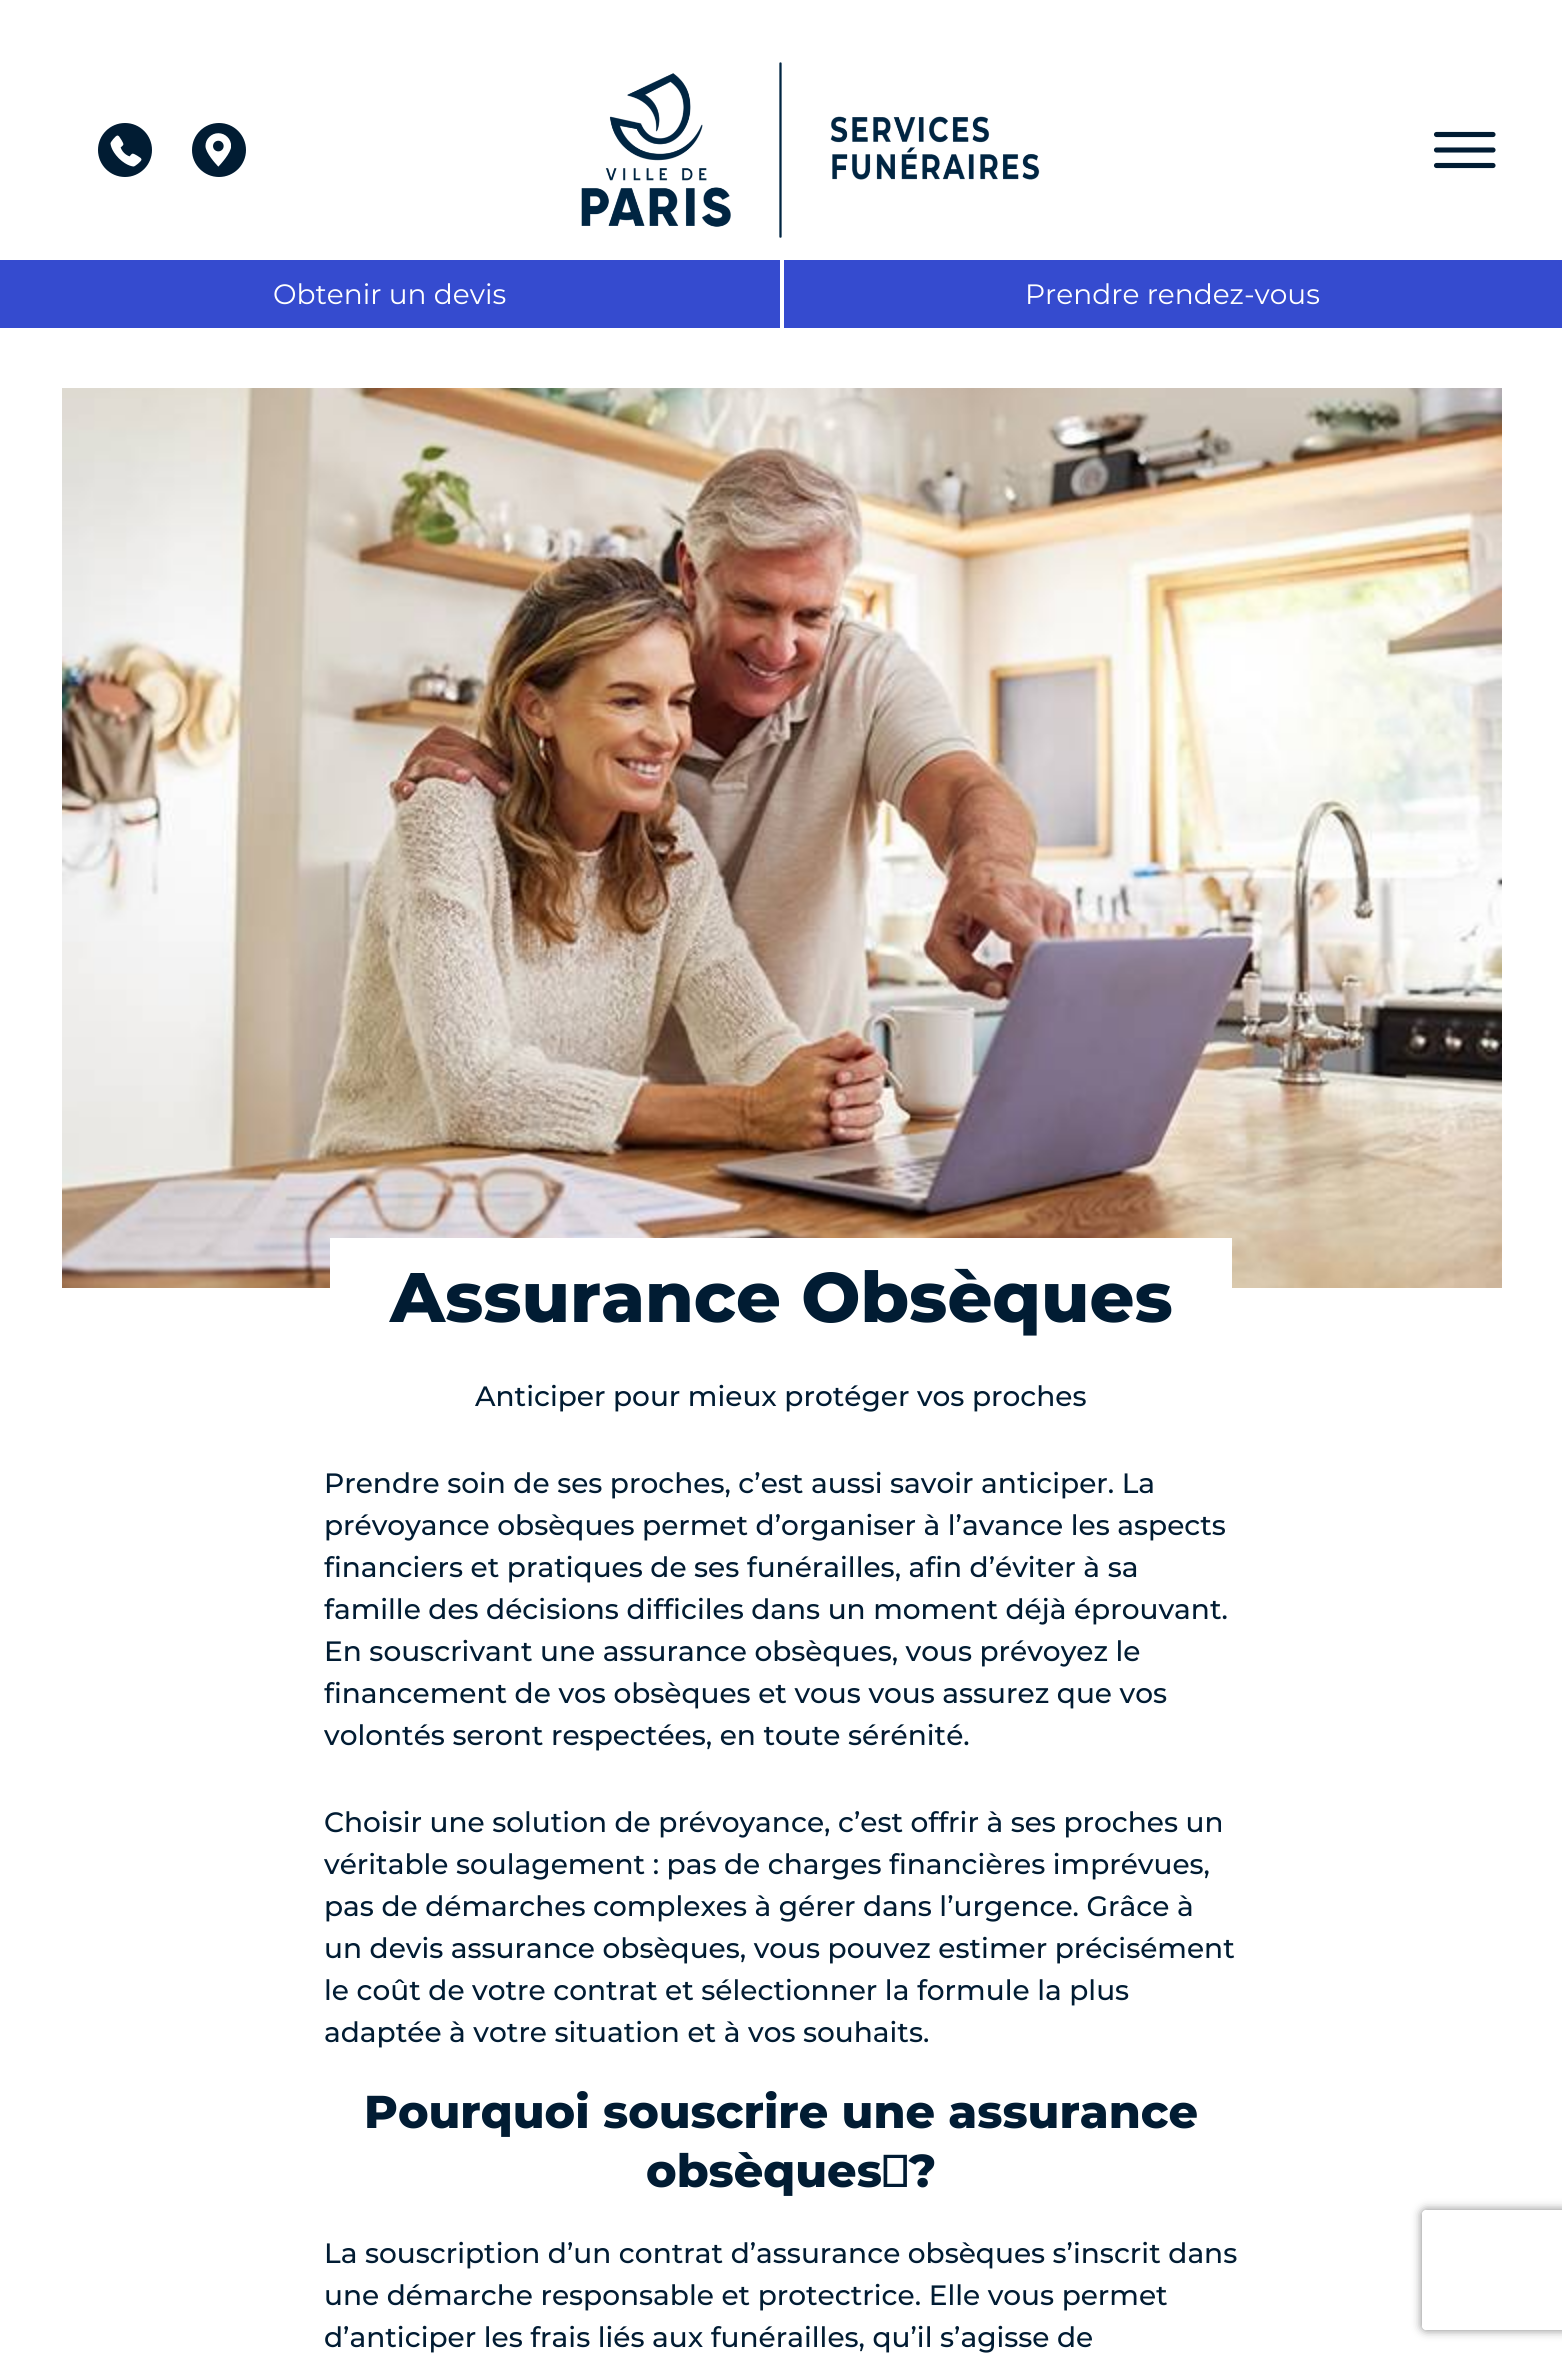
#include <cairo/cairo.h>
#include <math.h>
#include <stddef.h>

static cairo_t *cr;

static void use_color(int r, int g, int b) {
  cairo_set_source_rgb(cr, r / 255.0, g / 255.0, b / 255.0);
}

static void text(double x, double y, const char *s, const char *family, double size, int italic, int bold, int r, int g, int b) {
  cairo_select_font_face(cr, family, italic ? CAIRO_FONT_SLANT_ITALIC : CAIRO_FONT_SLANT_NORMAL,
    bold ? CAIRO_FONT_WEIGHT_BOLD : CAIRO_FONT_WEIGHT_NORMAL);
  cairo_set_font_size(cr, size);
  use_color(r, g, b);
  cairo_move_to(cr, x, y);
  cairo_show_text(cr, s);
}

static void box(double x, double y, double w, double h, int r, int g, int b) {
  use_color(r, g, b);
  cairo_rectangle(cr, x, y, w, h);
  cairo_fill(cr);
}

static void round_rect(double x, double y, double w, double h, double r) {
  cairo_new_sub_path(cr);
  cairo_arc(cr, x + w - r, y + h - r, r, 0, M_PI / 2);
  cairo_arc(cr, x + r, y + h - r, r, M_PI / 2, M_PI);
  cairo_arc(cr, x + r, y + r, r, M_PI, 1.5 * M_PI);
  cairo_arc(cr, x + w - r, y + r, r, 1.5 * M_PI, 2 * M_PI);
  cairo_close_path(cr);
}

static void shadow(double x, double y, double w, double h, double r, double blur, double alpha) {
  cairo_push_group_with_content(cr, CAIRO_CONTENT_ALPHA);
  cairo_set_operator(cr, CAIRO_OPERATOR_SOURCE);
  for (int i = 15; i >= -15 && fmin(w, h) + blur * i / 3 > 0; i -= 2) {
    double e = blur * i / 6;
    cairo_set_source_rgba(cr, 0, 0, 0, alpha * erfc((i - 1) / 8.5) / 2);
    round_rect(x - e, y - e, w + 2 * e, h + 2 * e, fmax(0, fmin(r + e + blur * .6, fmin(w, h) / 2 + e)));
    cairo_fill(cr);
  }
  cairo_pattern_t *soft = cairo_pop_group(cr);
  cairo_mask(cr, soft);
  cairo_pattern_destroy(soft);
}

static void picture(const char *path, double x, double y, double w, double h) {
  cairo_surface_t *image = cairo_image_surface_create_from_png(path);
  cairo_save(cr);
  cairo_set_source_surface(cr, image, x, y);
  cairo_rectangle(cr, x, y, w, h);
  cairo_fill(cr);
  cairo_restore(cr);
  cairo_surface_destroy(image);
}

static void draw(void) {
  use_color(255, 255, 255);
  cairo_paint(cr);
  picture("img_01.png", 98, 123, 54, 54);
  picture("img_02.png", 192, 123, 54, 54);
  picture("img_03.png", 581, 62, 459, 176);
  cairo_new_path(cr);
  cairo_move_to(cr, 1436.5, 134.5);
  cairo_line_to(cr, 1493, 134.5);
  cairo_move_to(cr, 1436.5, 150);
  cairo_line_to(cr, 1493, 150);
  cairo_move_to(cr, 1436.5, 165.5);
  cairo_line_to(cr, 1493, 165.5);
  use_color(1, 28, 51);
  cairo_set_line_width(cr, 5.1);
  cairo_set_line_cap(cr, CAIRO_LINE_CAP_ROUND);
  cairo_stroke(cr);
  box(0, 260, 780, 68, 53, 75, 207);
  box(784, 260, 778, 68, 53, 75, 207);
  picture("img_04.png", 62, 388, 1440, 900);
  box(330, 1238, 902, 50, 255, 255, 255);
  cairo_save(cr);
  cairo_set_fill_rule(cr, CAIRO_FILL_RULE_EVEN_ODD);
  cairo_new_path(cr);
  cairo_move_to(cr, 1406, 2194);
  cairo_line_to(cr, 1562, 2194);
  cairo_line_to(cr, 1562, 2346);
  cairo_line_to(cr, 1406, 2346);
  cairo_close_path(cr);
  cairo_move_to(cr, 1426, 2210);
  cairo_line_to(cr, 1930, 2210);
  cairo_curve_to(cr, 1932, 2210, 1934, 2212, 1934, 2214);
  cairo_line_to(cr, 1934, 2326);
  cairo_curve_to(cr, 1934, 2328, 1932, 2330, 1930, 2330);
  cairo_line_to(cr, 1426, 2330);
  cairo_curve_to(cr, 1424, 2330, 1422, 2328, 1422, 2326);
  cairo_line_to(cr, 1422, 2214);
  cairo_curve_to(cr, 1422, 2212, 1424, 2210, 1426, 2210);
  cairo_close_path(cr);
  cairo_clip(cr);
  use_color(128, 128, 128);
  shadow(1422, 2210, 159, 120, 4, 5, 1);
  cairo_restore(cr);
  text(273, 304, "Obtenir un devis", "Montserrat", 28, 0, 0, 255, 255, 255);
  text(1025, 304, "Prendre rendez-vous", "Montserrat", 28, 0, 0, 255, 255, 255);
  text(390, 1322, "Assurance Obsèques", "Montserrat ExtraBold", 70, 0, 0, 1, 28, 51);
  text(475, 1406, "Anticiper pour mieux protéger vos proches", "Montserrat Medium", 28, 0, 0, 1, 28, 51);
  text(324, 1493, "Prendre soin de ses proches, c’est aussi savoir anticiper. La", "Montserrat Medium", 28, 0, 0, 1, 28, 51);
  text(324, 1535, "prévoyance obsèques permet d’organiser à l’avance les aspects", "Montserrat Medium", 28, 0, 0, 1, 28, 51);
  text(324, 1577, "financiers et pratiques de ses funérailles, afin d’éviter à sa", "Montserrat Medium", 28, 0, 0, 1, 28, 51);
  text(324, 1619, "famille des décisions difficiles dans un moment déjà éprouvant.", "Montserrat Medium", 28, 0, 0, 1, 28, 51);
  text(324, 1661, "En souscrivant une assurance obsèques, vous prévoyez le", "Montserrat Medium", 28, 0, 0, 1, 28, 51);
  text(324, 1703, "financement de vos obsèques et vous vous assurez que vos", "Montserrat Medium", 28, 0, 0, 1, 28, 51);
  text(324, 1745, "volontés seront respectées, en toute sérénité.", "Montserrat Medium", 28, 0, 0, 1, 28, 51);
  text(324, 1832, "Choisir une solution de prévoyance, c’est offrir à ses proches un", "Montserrat Medium", 28, 0, 0, 1, 28, 51);
  text(324, 1874, "véritable soulagement : pas de charges financières imprévues,", "Montserrat Medium", 28, 0, 0, 1, 28, 51);
  text(324, 1916, "pas de démarches complexes à gérer dans l’urgence. Grâce à", "Montserrat Medium", 28, 0, 0, 1, 28, 51);
  text(324, 1958, "un devis assurance obsèques, vous pouvez estimer précisément", "Montserrat Medium", 28, 0, 0, 1, 28, 51);
  text(324, 2000, "le coût de votre contrat et sélectionner la formule la plus", "Montserrat Medium", 28, 0, 0, 1, 28, 51);
  text(324, 2042, "adaptée à votre situation et à vos souhaits.", "Montserrat Medium", 28, 0, 0, 1, 28, 51);
  text(364, 2128, "Pourquoi souscrire une assurance", "Montserrat ExtraBold", 46, 0, 0, 1, 28, 51);
  text(646, 2187, "obsèques ?", "Montserrat ExtraBold", 46, 0, 0, 1, 28, 51);
  text(324, 2263, "La souscription d’un contrat d’assurance obsèques s’inscrit dans", "Montserrat Medium", 28, 0, 0, 1, 28, 51);
  text(324, 2305, "une démarche responsable et protectrice. Elle vous permet", "Montserrat Medium", 28, 0, 0, 1, 28, 51);
  text(324, 2347, "d’anticiper les frais liés aux funérailles, qu’il s’agisse de", "Montserrat Medium", 28, 0, 0, 1, 28, 51);
}

int main(void) {
  cairo_surface_t *surface = cairo_image_surface_create(CAIRO_FORMAT_RGB24, 1562, 2357);
  cr = cairo_create(surface);
  cairo_font_options_t *options = cairo_font_options_create();
  cairo_font_options_set_hint_metrics(options, CAIRO_HINT_METRICS_OFF);
  cairo_font_options_set_hint_style(options, CAIRO_HINT_STYLE_NONE);
  cairo_set_font_options(cr, options);
  cairo_set_miter_limit(cr, 4);
  draw();
  cairo_surface_write_to_png(surface, "out.png");
  cairo_font_options_destroy(options);
  cairo_destroy(cr);
  cairo_surface_destroy(surface);
  return 0;
}
